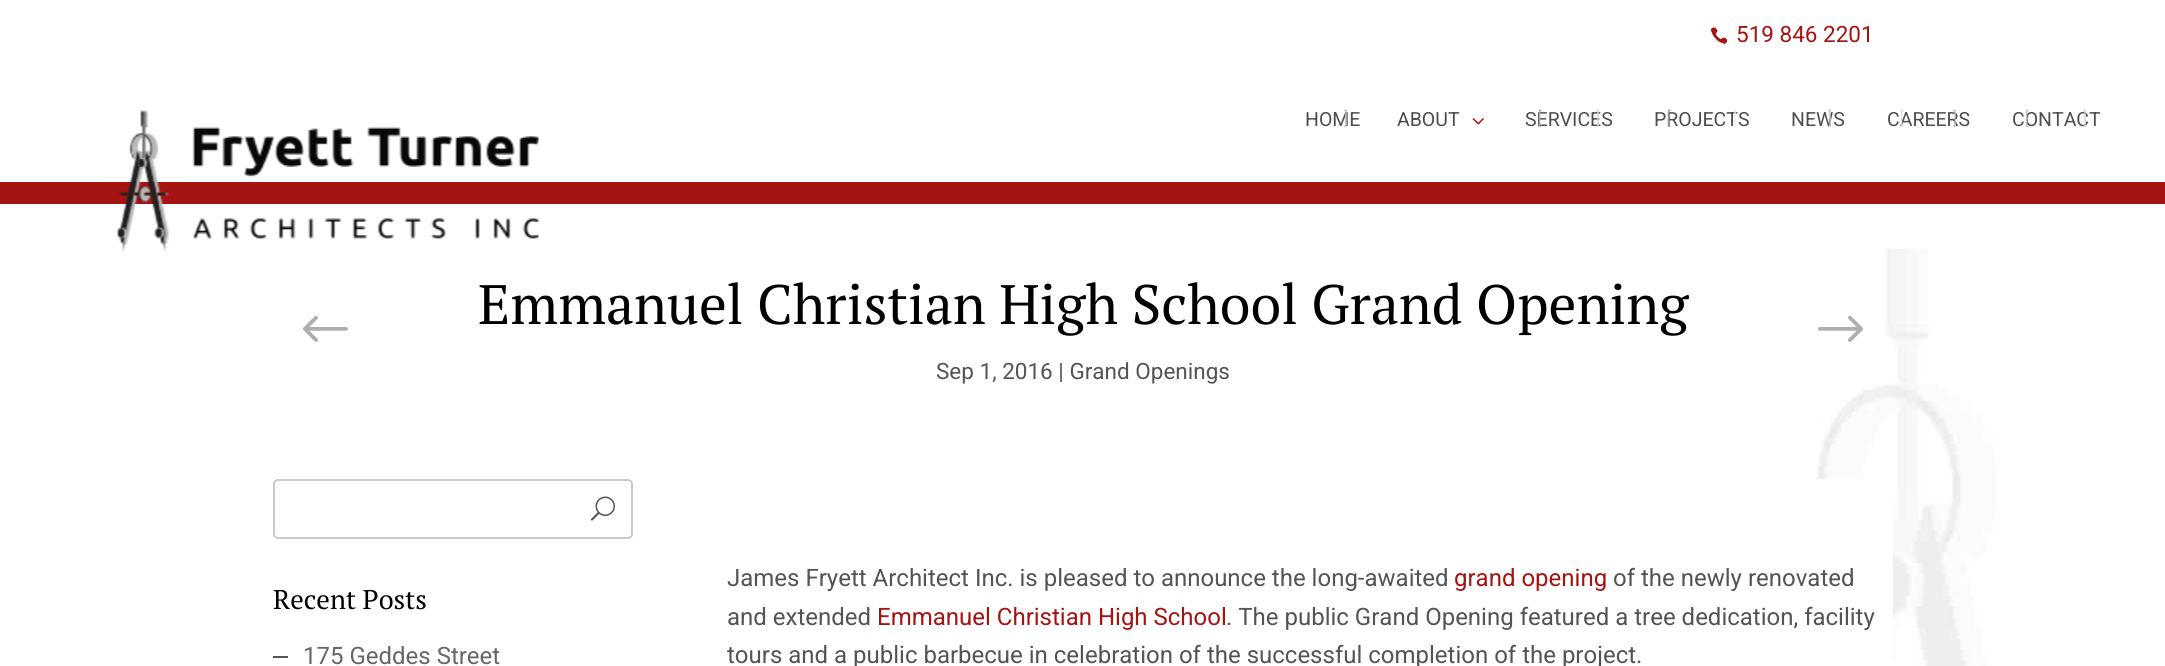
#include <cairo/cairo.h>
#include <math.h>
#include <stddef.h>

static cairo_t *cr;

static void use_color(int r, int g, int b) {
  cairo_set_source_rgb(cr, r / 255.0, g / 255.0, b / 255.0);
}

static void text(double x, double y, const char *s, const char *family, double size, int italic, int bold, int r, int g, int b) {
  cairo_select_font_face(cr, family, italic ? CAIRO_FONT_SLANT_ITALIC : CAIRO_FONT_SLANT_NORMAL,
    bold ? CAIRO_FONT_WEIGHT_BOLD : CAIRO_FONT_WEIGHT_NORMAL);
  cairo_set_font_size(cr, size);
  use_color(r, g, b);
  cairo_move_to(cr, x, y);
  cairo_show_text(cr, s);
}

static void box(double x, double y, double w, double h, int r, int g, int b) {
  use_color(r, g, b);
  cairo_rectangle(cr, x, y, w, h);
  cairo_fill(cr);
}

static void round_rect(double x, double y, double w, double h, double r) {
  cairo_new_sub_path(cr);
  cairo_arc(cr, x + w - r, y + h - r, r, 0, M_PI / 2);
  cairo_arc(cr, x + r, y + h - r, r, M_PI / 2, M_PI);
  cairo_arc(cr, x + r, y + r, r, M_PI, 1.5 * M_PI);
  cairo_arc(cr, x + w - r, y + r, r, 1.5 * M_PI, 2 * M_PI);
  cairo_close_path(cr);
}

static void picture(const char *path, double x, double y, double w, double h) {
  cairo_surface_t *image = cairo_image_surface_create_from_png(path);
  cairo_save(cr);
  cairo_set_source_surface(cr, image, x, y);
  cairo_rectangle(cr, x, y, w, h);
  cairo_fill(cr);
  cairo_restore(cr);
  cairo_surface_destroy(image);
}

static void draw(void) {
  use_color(255, 255, 255);
  cairo_paint(cr);
  picture("img_01.png", 1817, 249, 179, 417);
  picture("img_02.png", 1710, 27, 18, 17);
  box(0, 182, 2165, 22, 165, 19, 19);
  picture("img_03.png", 116, 110, 423, 142);
  picture("img_04.png", 1472, 118, 12, 7);
  picture("img_05.png", 303, 315, 45, 27);
  picture("img_06.png", 1818, 315, 45, 27);
  round_rect(274, 480, 358, 58, 4);
  use_color(202, 202, 202);
  cairo_stroke(cr);
  picture("img_07.png", 590, 496, 25, 25);
  box(273, 656, 15, 2, 84, 84, 84);
  box(1817, 479, 76, 187, 255, 255, 255);
  text(1736, 42, "519 846 2201", "Roboto", 22.5, 0, 0, 165, 19, 19);
  text(1305, 126, "HOME", "Roboto", 19.5, 0, 0, 77, 77, 77);
  text(1343, 126, "]", "Raleway", 22, 0, 0, 190, 190, 190);
  text(1397, 126, "ABOUT", "Roboto", 19.5, 0, 0, 77, 77, 77);
  text(1525, 126, "SERVICES", "Roboto", 19.5, 0, 0, 77, 77, 77);
  text(1595, 126, "]", "Raleway", 22, 0, 0, 210, 210, 210);
  text(1537, 126, "[", "Raleway", 22, 0, 0, 169, 169, 169);
  text(1654, 126, "PROJECTS", "Roboto", 19.5, 0, 0, 77, 77, 77);
  text(1732, 126, "]", "Raleway", 22, 0, 0, 237, 237, 237);
  text(1666, 126, "[", "Raleway", 22, 0, 0, 153, 153, 153);
  text(1791, 126, "NEWS", "Roboto", 19.5, 0, 0, 77, 77, 77);
  text(1827, 126, "]", "Raleway", 22, 0, 0, 190, 190, 190);
  text(1887, 126, "CAREERS", "Roboto", 19.5, 0, 0, 77, 77, 77);
  text(1952, 126, "]", "Raleway", 22, 0, 0, 190, 190, 190);
  text(1899, 126, "[", "Raleway", 22, 0, 0, 220, 220, 220);
  text(2012, 126, "CONTACT", "Roboto", 19.5, 0, 0, 77, 77, 77);
  text(2082, 126, "]", "Raleway", 22, 0, 0, 210, 210, 210);
  text(2024, 126, "[", "Raleway", 22, 0, 0, 190, 190, 190);
  text(478, 324, "Emmanuel Christian High School Grand Opening", "PT Serif", 55.5, 0, 0, 0, 0, 0);
  text(936, 379, "Sep 1, 2016 | Grand Openings", "Roboto", 22.5, 0, 0, 84, 84, 84);
  text(273, 609, "Recent Posts", "PT Serif", 27, 0, 0, 0, 0, 0);
  text(303, 664, "175 Geddes Street", "Roboto", 24, 0, 0, 102, 102, 102);
  text(727, 586, "James Fryett Architect Inc. is pleased to announce the long-awaited", "Roboto", 24, 0, 0, 84, 84, 84);
  text(1454, 586, "grand opening", "Roboto", 24, 0, 0, 165, 19, 19);
  text(1613, 586, "of the newly renovated", "Roboto", 24, 0, 0, 84, 84, 84);
  text(727, 625, "and extended", "Roboto", 24, 0, 0, 84, 84, 84);
  text(877, 625, "Emmanuel Christian High School", "Roboto", 24, 0, 0, 165, 19, 19);
  text(1226, 625, ". The public Grand Opening featured a tree dedication, facility", "Roboto", 24, 0, 0, 84, 84, 84);
  text(727, 663, "tours and a public barbecue in celebration of the successful completion of the project.", "Roboto", 24, 0, 0, 84, 84, 84);
}

int main(void) {
  cairo_surface_t *surface = cairo_image_surface_create(CAIRO_FORMAT_RGB24, 2165, 666);
  cr = cairo_create(surface);
  cairo_font_options_t *options = cairo_font_options_create();
  cairo_font_options_set_hint_metrics(options, CAIRO_HINT_METRICS_OFF);
  cairo_font_options_set_hint_style(options, CAIRO_HINT_STYLE_NONE);
  cairo_set_font_options(cr, options);
  cairo_set_miter_limit(cr, 4);
  draw();
  cairo_surface_write_to_png(surface, "out.png");
  cairo_font_options_destroy(options);
  cairo_destroy(cr);
  cairo_surface_destroy(surface);
  return 0;
}
